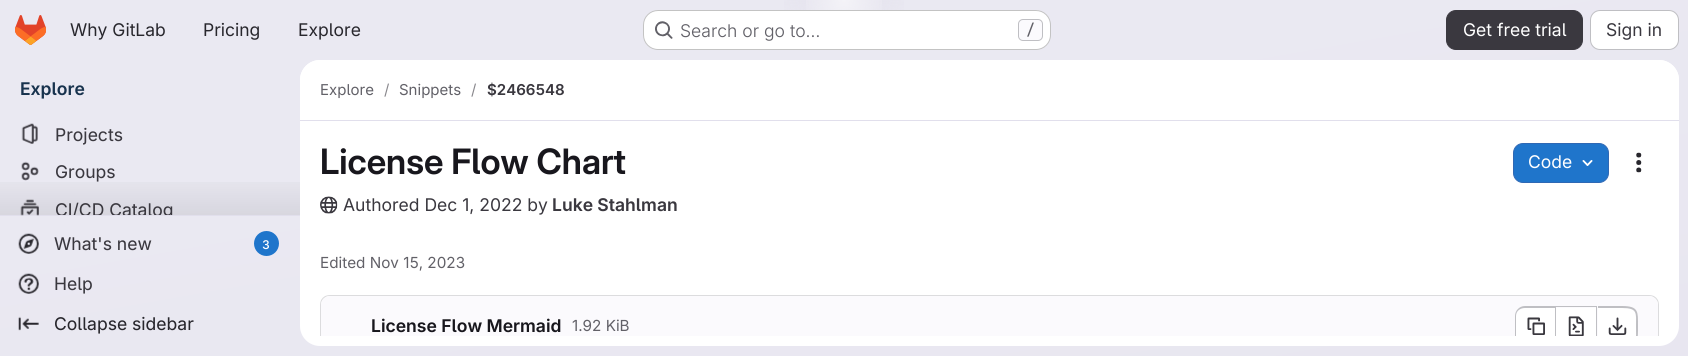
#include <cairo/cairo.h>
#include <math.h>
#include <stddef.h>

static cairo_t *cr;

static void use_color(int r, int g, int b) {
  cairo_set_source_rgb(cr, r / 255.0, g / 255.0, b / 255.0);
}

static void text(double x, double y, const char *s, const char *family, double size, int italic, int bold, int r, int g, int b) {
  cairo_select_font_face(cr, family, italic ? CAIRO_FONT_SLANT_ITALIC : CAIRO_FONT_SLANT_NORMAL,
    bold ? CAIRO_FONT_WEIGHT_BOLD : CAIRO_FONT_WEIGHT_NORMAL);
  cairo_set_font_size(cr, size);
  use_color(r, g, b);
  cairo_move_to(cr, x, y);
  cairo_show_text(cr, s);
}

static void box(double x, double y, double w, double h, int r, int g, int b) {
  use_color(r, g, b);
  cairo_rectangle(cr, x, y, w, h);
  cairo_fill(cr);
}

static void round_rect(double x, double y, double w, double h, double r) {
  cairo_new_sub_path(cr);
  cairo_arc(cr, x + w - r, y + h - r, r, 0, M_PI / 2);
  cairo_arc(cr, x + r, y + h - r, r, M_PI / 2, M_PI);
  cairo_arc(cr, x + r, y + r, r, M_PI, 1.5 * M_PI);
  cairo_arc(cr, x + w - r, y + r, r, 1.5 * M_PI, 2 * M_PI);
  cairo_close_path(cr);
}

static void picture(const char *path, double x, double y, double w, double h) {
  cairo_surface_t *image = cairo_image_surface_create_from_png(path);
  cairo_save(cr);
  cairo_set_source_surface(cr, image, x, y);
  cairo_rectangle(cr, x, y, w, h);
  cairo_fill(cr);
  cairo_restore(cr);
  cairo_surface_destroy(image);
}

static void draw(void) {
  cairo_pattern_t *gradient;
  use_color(255, 255, 255);
  cairo_paint(cr);
  gradient = cairo_pattern_create_linear(900, 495, 788, -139);
  cairo_pattern_add_color_stop_rgba(gradient, 0, 0.91, 0.902, 0.941, 1);
  cairo_pattern_add_color_stop_rgba(gradient, 0.7, 0.918, 0.914, 0.949, 1);
  cairo_set_source(cr, gradient);
  cairo_pattern_destroy(gradient);
  cairo_rectangle(cr, 0, 0, 1688, 356);
  cairo_fill(cr);
  gradient = cairo_pattern_create_radial(0, 0, 0, 0, 0, 1);
  cairo_pattern_set_matrix(gradient, &(cairo_matrix_t){1.0 / 844, 0, 0, 1.0 / 356, -1.0 * 844 / 844, -1.0 * 0 / 356});
  cairo_pattern_add_color_stop_rgba(gradient, 0, 0.894, 0.886, 0.929, 1);
  cairo_pattern_add_color_stop_rgba(gradient, 0.1, 0.894, 0.886, 0.929, 0);
  cairo_set_source(cr, gradient);
  cairo_pattern_destroy(gradient);
  cairo_rectangle(cr, 784, 0, 120, 10);
  cairo_fill(cr);
  gradient = cairo_pattern_create_radial(0, 0, 0, 0, 0, 1);
  cairo_pattern_set_matrix(gradient, &(cairo_matrix_t){1.0 / 844, 0, 0, 1.0 / 356, -1.0 * 844 / 844, -1.0 * 0 / 356});
  cairo_pattern_add_color_stop_rgba(gradient, 0, 0.894, 0.886, 0.925, 1);
  cairo_pattern_add_color_stop_rgba(gradient, 0.07, 0.894, 0.886, 0.925, 0);
  cairo_set_source(cr, gradient);
  cairo_pattern_destroy(gradient);
  cairo_rectangle(cr, 843, 6, 2, 1);
  cairo_fill(cr);
  gradient = cairo_pattern_create_radial(844, 0, 0, 844, 0, 916);
  cairo_pattern_add_color_stop_rgba(gradient, 0, 1, 1, 1, 0.6);
  cairo_pattern_add_color_stop_rgba(gradient, 0.05, 1, 1, 1, 0);
  cairo_set_source(cr, gradient);
  cairo_pattern_destroy(gradient);
  cairo_rectangle(cr, 806, 0, 76, 10);
  cairo_fill(cr);
  picture("img_01.png", 15, 15, 31, 30);
  use_color(255, 255, 255);
  round_rect(643, 10, 408, 40, 15);
  cairo_fill(cr);
  round_rect(643.5, 10.5, 407, 39, 14.5);
  cairo_set_source_rgba(cr, 0.02, 0.02, 0.024, 0.24);
  cairo_set_line_width(cr, 1);
  cairo_stroke(cr);
  picture("img_02.png", 655, 21, 18, 18);
  use_color(251, 250, 253);
  round_rect(1018.5, 19.5, 24, 21, 4.5);
  cairo_fill_preserve(cr);
  use_color(191, 191, 195);
  cairo_stroke(cr);
  use_color(58, 56, 63);
  round_rect(1446.5, 10.5, 136, 39, 9.5);
  cairo_fill_preserve(cr);
  cairo_stroke(cr);
  use_color(255, 255, 255);
  round_rect(1590.5, 10.5, 88, 39, 9.5);
  cairo_fill_preserve(cr);
  use_color(191, 191, 195);
  cairo_stroke(cr);
  box(0, 215, 300, 1, 225, 223, 236);
  picture("img_03.png", 21, 123, 17, 21);
  picture("img_04.png", 21, 161, 18, 20);
  picture("img_05.png", 20, 199, 19, 17);
  gradient = cairo_pattern_create_linear(150, 170, 150, 215);
  cairo_pattern_add_color_stop_rgba(gradient, 0, 0.02, 0.02, 0.024, 0);
  cairo_pattern_add_color_stop_rgba(gradient, 1, 0.02, 0.02, 0.024, 0.08);
  cairo_set_source(cr, gradient);
  cairo_pattern_destroy(gradient);
  cairo_rectangle(cr, 0, 182, 300, 33);
  cairo_fill(cr);
  picture("img_06.png", 18, 233, 21, 21);
  use_color(31, 117, 203);
  cairo_arc(cr, 266.5, 243.5, 12.5, 0, 2 * M_PI);
  cairo_fill(cr);
  picture("img_07.png", 18, 273, 21, 21);
  picture("img_08.png", 18, 316, 21, 15);
  use_color(255, 255, 255);
  round_rect(300, 60, 1379, 286, 20);
  cairo_fill(cr);
  cairo_new_path(cr);
  cairo_move_to(cr, 320, 60);
  cairo_line_to(cr, 1659, 60);
  cairo_curve_to(cr, 1670, 60, 1679, 69, 1679, 80);
  cairo_line_to(cr, 1679, 121);
  cairo_line_to(cr, 300, 121);
  cairo_line_to(cr, 300, 80);
  cairo_curve_to(cr, 300, 69, 309, 60, 320, 60);
  cairo_close_path(cr);
  cairo_fill(cr);
  box(300, 120, 1379, 1, 225, 223, 236);
  use_color(31, 117, 203);
  round_rect(1513.5, 143.5, 95, 39, 9.5);
  cairo_fill_preserve(cr);
  use_color(47, 104, 180);
  cairo_stroke(cr);
  picture("img_09.png", 1582, 160, 11, 6);
  picture("img_10.png", 1636, 152, 6, 21);
  picture("img_11.png", 320, 196, 18, 18);
  cairo_save(cr);
  cairo_rectangle(cr, 300, 121, 1379, 215);
  cairo_clip(cr);
  use_color(220, 220, 222);
  cairo_new_path(cr);
  cairo_move_to(cr, 330, 295);
  cairo_curve_to(cr, 324, 295, 320, 299, 320, 305);
  cairo_line_to(cr, 320, 346);
  cairo_line_to(cr, 321, 346);
  cairo_line_to(cr, 321, 305);
  cairo_curve_to(cr, 321, 300, 325, 296, 330, 296);
  cairo_line_to(cr, 1649, 296);
  cairo_curve_to(cr, 1654, 296, 1658, 300, 1658, 305);
  cairo_line_to(cr, 1658, 346);
  cairo_line_to(cr, 1659, 346);
  cairo_line_to(cr, 1659, 305);
  cairo_curve_to(cr, 1659, 299, 1655, 295, 1649, 295);
  cairo_close_path(cr);
  cairo_fill(cr);
  cairo_restore(cr);
  use_color(251, 250, 253);
  cairo_new_path(cr);
  cairo_move_to(cr, 330, 296);
  cairo_line_to(cr, 1649, 296);
  cairo_curve_to(cr, 1654, 296, 1658, 300, 1658, 305);
  cairo_line_to(cr, 1658, 336);
  cairo_line_to(cr, 321, 336);
  cairo_line_to(cr, 321, 305);
  cairo_curve_to(cr, 321, 300, 325, 296, 330, 296);
  cairo_close_path(cr);
  cairo_fill(cr);
  use_color(255, 255, 255);
  cairo_new_path(cr);
  cairo_move_to(cr, 1525, 308);
  cairo_line_to(cr, 1555, 308);
  cairo_line_to(cr, 1555, 336);
  cairo_line_to(cr, 1516, 336);
  cairo_line_to(cr, 1516, 317);
  cairo_curve_to(cr, 1516, 312, 1520, 308, 1525, 308);
  cairo_close_path(cr);
  cairo_fill(cr);
  cairo_save(cr);
  cairo_rectangle(cr, 300, 121, 1379, 215);
  cairo_clip(cr);
  use_color(191, 191, 195);
  cairo_set_fill_rule(cr, CAIRO_FILL_RULE_EVEN_ODD);
  cairo_new_path(cr);
  cairo_move_to(cr, 1525, 306);
  cairo_line_to(cr, 1555, 306);
  cairo_line_to(cr, 1555, 346);
  cairo_line_to(cr, 1525, 346);
  cairo_curve_to(cr, 1519, 346, 1515, 342, 1515, 336);
  cairo_line_to(cr, 1515, 316);
  cairo_curve_to(cr, 1515, 311, 1519, 306, 1525, 306);
  cairo_close_path(cr);
  cairo_move_to(cr, 1525, 308);
  cairo_line_to(cr, 1555, 308);
  cairo_line_to(cr, 1555, 345);
  cairo_line_to(cr, 1525, 345);
  cairo_curve_to(cr, 1520, 345, 1516, 341, 1516, 336);
  cairo_line_to(cr, 1516, 316);
  cairo_curve_to(cr, 1516, 311, 1520, 308, 1525, 308);
  cairo_close_path(cr);
  cairo_fill(cr);
  cairo_restore(cr);
  picture("img_12.png", 1527, 317, 18, 18);
  box(1556, 308, 40, 28, 255, 255, 255);
  box(1556, 306, 40, 1, 191, 191, 195);
  box(1555, 306, 1, 30, 191, 191, 195);
  picture("img_13.png", 1568, 316, 16, 20);
  use_color(255, 255, 255);
  cairo_new_path(cr);
  cairo_move_to(cr, 1598, 308);
  cairo_line_to(cr, 1627, 308);
  cairo_curve_to(cr, 1632, 308, 1636, 312, 1636, 317);
  cairo_line_to(cr, 1636, 336);
  cairo_line_to(cr, 1598, 336);
  cairo_close_path(cr);
  cairo_fill(cr);
  cairo_save(cr);
  cairo_rectangle(cr, 300, 121, 1379, 215);
  cairo_clip(cr);
  use_color(191, 191, 195);
  cairo_set_fill_rule(cr, CAIRO_FILL_RULE_EVEN_ODD);
  cairo_new_path(cr);
  cairo_move_to(cr, 1598, 306);
  cairo_line_to(cr, 1622, 306);
  cairo_curve_to(cr, 1639, 306, 1638, 312, 1638, 326);
  cairo_curve_to(cr, 1638, 340, 1639, 346, 1622, 346);
  cairo_line_to(cr, 1598, 346);
  cairo_close_path(cr);
  cairo_move_to(cr, 1598, 308);
  cairo_line_to(cr, 1622, 308);
  cairo_curve_to(cr, 1638, 308, 1636, 313, 1636, 326);
  cairo_curve_to(cr, 1636, 340, 1638, 345, 1622, 345);
  cairo_line_to(cr, 1598, 345);
  cairo_close_path(cr);
  cairo_fill(cr);
  cairo_restore(cr);
  box(1596, 306, 1, 30, 191, 191, 195);
  picture("img_14.png", 1608, 317, 19, 18);
  text(70, 36, "Why GitLab", "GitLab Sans", 17.5, 0, 0, 40, 39, 45);
  text(203, 36, "Pricing", "GitLab Sans", 17.5, 0, 0, 40, 39, 45);
  text(298, 36, "Explore", "GitLab Sans", 17.5, 0, 0, 40, 39, 45);
  text(680, 37, "Search or go to…", "GitLab Sans Light", 17.5, 0, 0, 98, 97, 104);
  text(1026, 35, "/", "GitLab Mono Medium", 15, 0, 0, 98, 97, 104);
  text(1463, 36, "Get free trial", "GitLab Sans", 17.5, 0, 0, 255, 255, 255);
  text(1606, 36, "Sign in", "GitLab Sans", 17.5, 0, 0, 58, 56, 63);
  text(20, 95, "Explore", "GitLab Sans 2 SemiBold", 17.5, 0, 0, 24, 51, 78);
  text(55, 141, "Projects", "GitLab Sans 2", 17.5, 0, 0, 58, 56, 63);
  text(55, 178, "Groups", "GitLab Sans 2", 17.5, 0, 0, 58, 56, 63);
  cairo_save(cr);
  cairo_rectangle(cr, 0, 111, 300, 104);
  cairo_clip(cr);
  text(55, 216, "CI/CD Catalog", "GitLab Sans 2", 17.5, 0, 0, 58, 56, 63);
  cairo_restore(cr);
  text(54, 250, "What's new", "GitLab Sans 2", 17.5, 0, 0, 58, 56, 63);
  text(262, 249, "3", "GitLab Sans Medium", 12, 0, 0, 255, 255, 255);
  text(54, 290, "Help", "GitLab Sans 2", 17.5, 0, 0, 58, 56, 63);
  text(54, 330, "Collapse sidebar", "GitLab Sans 2", 17.5, 0, 0, 40, 39, 45);
  text(320, 95, "Explore", "GitLab Sans", 15, 0, 0, 98, 97, 104);
  text(384, 95, "/", "GitLab Sans", 15, 0, 0, 137, 136, 141);
  text(399, 95, "Snippets", "GitLab Sans", 15, 0, 0, 98, 97, 104);
  text(471, 95, "/", "GitLab Sans", 15, 0, 0, 137, 136, 141);
  text(487, 95, "$2466548", "GitLab Sans 2 SemiBold", 15, 0, 0, 58, 56, 63);
  text(320, 174, "License Flow Chart", "GitLab Sans SemiBold", 35, 0, 0, 24, 23, 29);
  text(1528, 168, "Code", "GitLab Sans", 17.5, 0, 0, 255, 255, 255);
  text(343, 211, "Authored Dec 1, 2022 by", "GitLab Sans", 17.5, 0, 0, 58, 56, 63);
  text(552, 211, "Luke Stahlman", "GitLab Sans 2 SemiBold", 17.5, 0, 0, 58, 56, 63);
  text(320, 268, "Edited Nov 15, 2023", "GitLab Sans", 15.25, 0, 0, 98, 97, 104);
  text(371, 332, "License Flow Mermaid", "GitLab Sans 2 SemiBold", 17.5, 0, 0, 24, 23, 29);
  text(572, 331, "1.92 KiB", "GitLab Sans", 15.25, 0, 0, 98, 97, 104);
}

int main(void) {
  cairo_surface_t *surface = cairo_image_surface_create(CAIRO_FORMAT_RGB24, 1688, 356);
  cr = cairo_create(surface);
  cairo_font_options_t *options = cairo_font_options_create();
  cairo_font_options_set_hint_metrics(options, CAIRO_HINT_METRICS_OFF);
  cairo_font_options_set_hint_style(options, CAIRO_HINT_STYLE_NONE);
  cairo_set_font_options(cr, options);
  cairo_set_miter_limit(cr, 4);
  draw();
  cairo_surface_write_to_png(surface, "out.png");
  cairo_font_options_destroy(options);
  cairo_destroy(cr);
  cairo_surface_destroy(surface);
  return 0;
}
